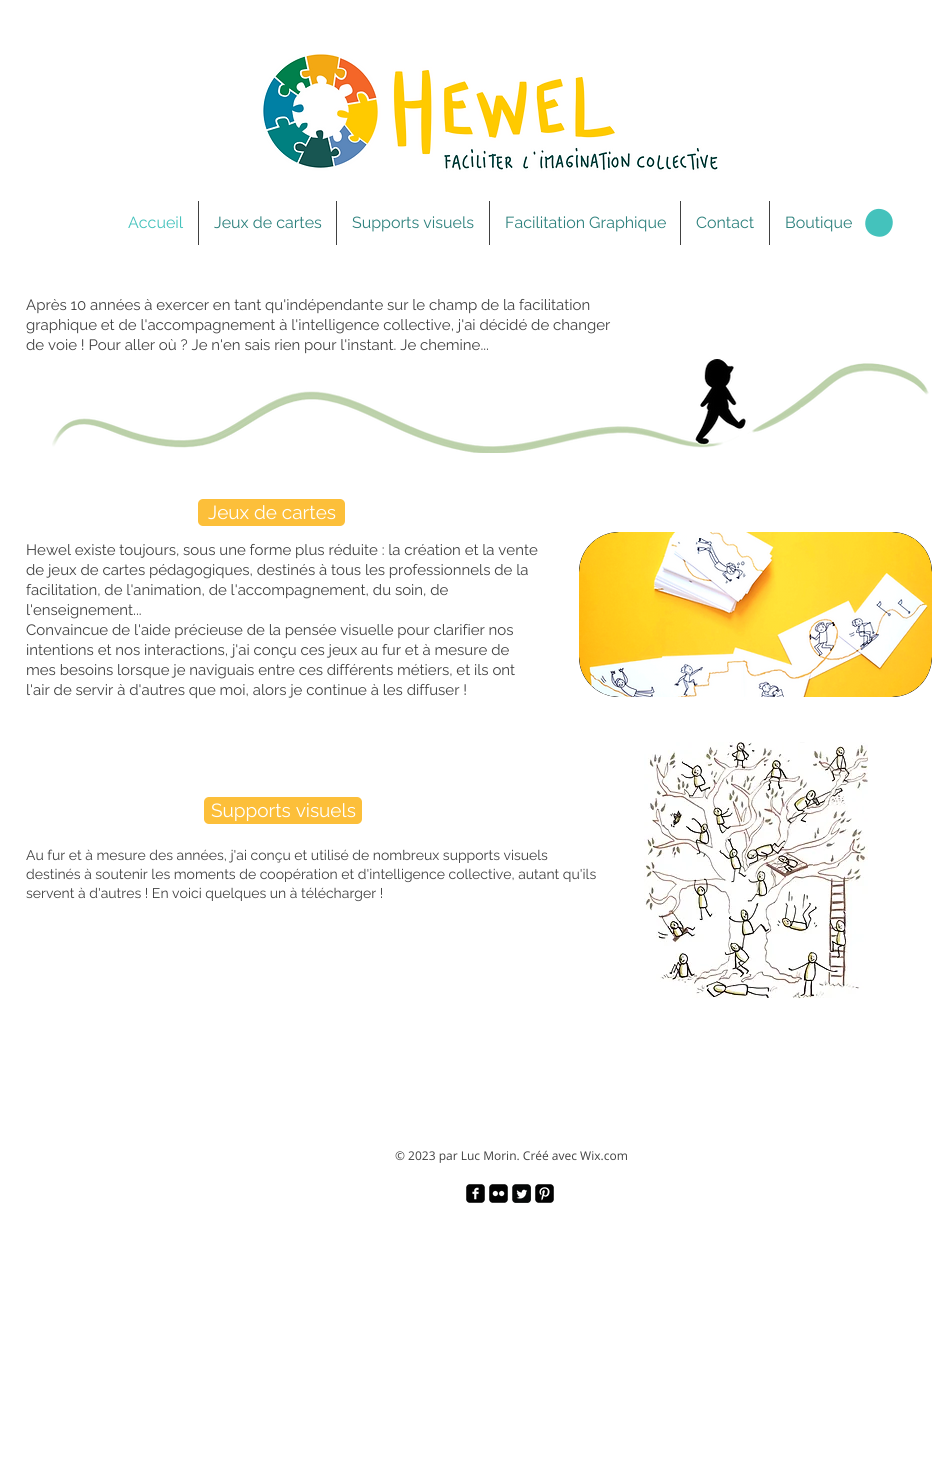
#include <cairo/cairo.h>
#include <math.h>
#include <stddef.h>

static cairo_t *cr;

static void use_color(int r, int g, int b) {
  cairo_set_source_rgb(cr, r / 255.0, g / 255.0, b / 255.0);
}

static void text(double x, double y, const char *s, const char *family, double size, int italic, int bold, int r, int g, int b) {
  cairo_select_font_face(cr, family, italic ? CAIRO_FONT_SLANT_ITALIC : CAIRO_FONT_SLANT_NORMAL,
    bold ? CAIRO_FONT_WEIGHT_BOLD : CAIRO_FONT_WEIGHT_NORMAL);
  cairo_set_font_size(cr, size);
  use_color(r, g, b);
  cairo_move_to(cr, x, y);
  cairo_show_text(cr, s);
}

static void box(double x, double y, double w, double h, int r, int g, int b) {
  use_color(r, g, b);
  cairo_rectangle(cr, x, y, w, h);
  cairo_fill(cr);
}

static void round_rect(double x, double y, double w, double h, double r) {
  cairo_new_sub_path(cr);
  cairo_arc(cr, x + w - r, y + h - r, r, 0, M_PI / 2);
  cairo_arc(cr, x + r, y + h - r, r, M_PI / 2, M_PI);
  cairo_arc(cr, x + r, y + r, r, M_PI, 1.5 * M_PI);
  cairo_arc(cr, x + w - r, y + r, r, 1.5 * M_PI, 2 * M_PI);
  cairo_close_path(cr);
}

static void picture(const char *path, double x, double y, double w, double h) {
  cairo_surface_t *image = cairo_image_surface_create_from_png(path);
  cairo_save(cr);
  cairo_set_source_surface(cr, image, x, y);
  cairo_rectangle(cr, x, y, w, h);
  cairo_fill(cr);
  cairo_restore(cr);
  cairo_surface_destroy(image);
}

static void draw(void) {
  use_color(255, 255, 255);
  cairo_paint(cr);
  picture("img_01.png", 251, 54, 478, 120);
  box(198, 201, 1, 44, 65, 65, 65);
  box(336, 201, 1, 44, 65, 65, 65);
  box(489, 201, 1, 44, 65, 65, 65);
  box(680, 201, 1, 44, 65, 65, 65);
  box(769, 201, 1, 44, 65, 65, 65);
  use_color(68, 194, 188);
  cairo_new_path(cr);
  cairo_move_to(cr, 883, 209.5);
  cairo_curve_to(cr, 900.5, 215, 892.5, 241.5, 875, 236);
  cairo_curve_to(cr, 857.5, 231, 865.5, 204.5, 883, 209.5);
  cairo_close_path(cr);
  cairo_fill(cr);
  picture("img_02.png", 52, 359, 877, 94);
  use_color(252, 191, 58);
  round_rect(198, 499, 147, 27, 5);
  cairo_fill(cr);
  use_color(0, 0, 0);
  round_rect(579, 532, 353, 165, 40);
  cairo_fill(cr);
  picture("img_03.png", 579, 532, 353, 165);
  use_color(252, 191, 58);
  round_rect(204, 797, 158, 27, 5);
  cairo_fill(cr);
  picture("img_04.png", 644, 742, 224, 257);
  picture("img_05.png", 466, 1184, 19, 19);
  picture("img_06.png", 489, 1184, 19, 19);
  picture("img_07.png", 512, 1184, 19, 19);
  picture("img_08.png", 535, 1184, 19, 19);
  text(128, 228, "Accueil", "Raleway", 16, 0, 0, 68, 194, 188);
  text(214, 228, "Jeux de cartes", "Raleway", 16, 0, 0, 45, 129, 125);
  text(352, 228, "Supports visuels", "Raleway", 16, 0, 0, 45, 129, 125);
  text(505, 228, "Facilitation Graphique", "Raleway", 16, 0, 0, 45, 129, 125);
  text(696, 228, "Contact", "Raleway", 16, 0, 0, 45, 129, 125);
  text(785, 228, "Boutique", "Raleway", 16, 0, 0, 45, 129, 125);
  text(26, 310, "Après 10 années à exercer en tant qu'indépendante sur le champ de la facilitation", "Raleway", 15, 0, 0, 65, 65, 65);
  text(26, 330, "graphique et de l'accompagnement à l'intelligence collective, j'ai décidé de changer", "Raleway", 15, 0, 0, 65, 65, 65);
  text(26, 350, "de voie ! Pour aller où ? Je n'en sais rien pour l'instant. Je chemine...", "Raleway", 15, 0, 0, 65, 65, 65);
  text(208, 519, "Jeux de cartes", "Raleway", 19, 0, 0, 255, 255, 255);
  text(26, 555, "Hewel existe toujours, sous une forme plus réduite : la création et la vente", "Raleway", 15, 0, 0, 65, 65, 65);
  text(26, 575, "de jeux de cartes pédagogiques, destinés à tous les professionnels de la", "Raleway", 15, 0, 0, 65, 65, 65);
  text(26, 595, "facilitation, de l'animation, de l'accompagnement, du soin, de", "Raleway", 15, 0, 0, 65, 65, 65);
  text(26, 615, "l'enseignement...", "Raleway", 15, 0, 0, 65, 65, 65);
  text(26, 635, "Convaincue de l'aide précieuse de la pensée visuelle pour clarifier nos", "Raleway", 15, 0, 0, 65, 65, 65);
  text(26, 655, "intentions et nos interactions, j'ai conçu ces jeux au fur et à mesure de", "Raleway", 15, 0, 0, 65, 65, 65);
  text(26, 675, "mes besoins lorsque je naviguais entre ces différents métiers, et ils ont", "Raleway", 15, 0, 0, 65, 65, 65);
  text(26, 695, "l'air de servir à d'autres que moi, alors je continue à les diffuser !", "Raleway", 15, 0, 0, 65, 65, 65);
  text(211, 817, "Supports visuels", "Raleway", 19, 0, 0, 255, 255, 255);
  text(26, 860, "Au fur et à mesure des années, j'ai conçu et utilisé de nombreux supports visuels", "Raleway", 14, 0, 0, 65, 65, 65);
  text(26, 879, "destinés à soutenir les moments de coopération et d'intelligence collective, autant qu'ils", "Raleway", 14, 0, 0, 65, 65, 65);
  text(26, 898, "servent à d'autres ! En voici quelques un à télécharger !", "Raleway", 14, 0, 0, 65, 65, 65);
  text(395, 1160, "© 2023 par Luc Morin. Créé avec Wix.com", "Open Sans", 12, 0, 0, 65, 65, 65);
}

int main(void) {
  cairo_surface_t *surface = cairo_image_surface_create(CAIRO_FORMAT_RGB24, 946, 1458);
  cr = cairo_create(surface);
  cairo_font_options_t *options = cairo_font_options_create();
  cairo_font_options_set_hint_metrics(options, CAIRO_HINT_METRICS_OFF);
  cairo_font_options_set_hint_style(options, CAIRO_HINT_STYLE_NONE);
  cairo_set_font_options(cr, options);
  cairo_set_miter_limit(cr, 4);
  draw();
  cairo_surface_write_to_png(surface, "out.png");
  cairo_font_options_destroy(options);
  cairo_destroy(cr);
  cairo_surface_destroy(surface);
  return 0;
}
